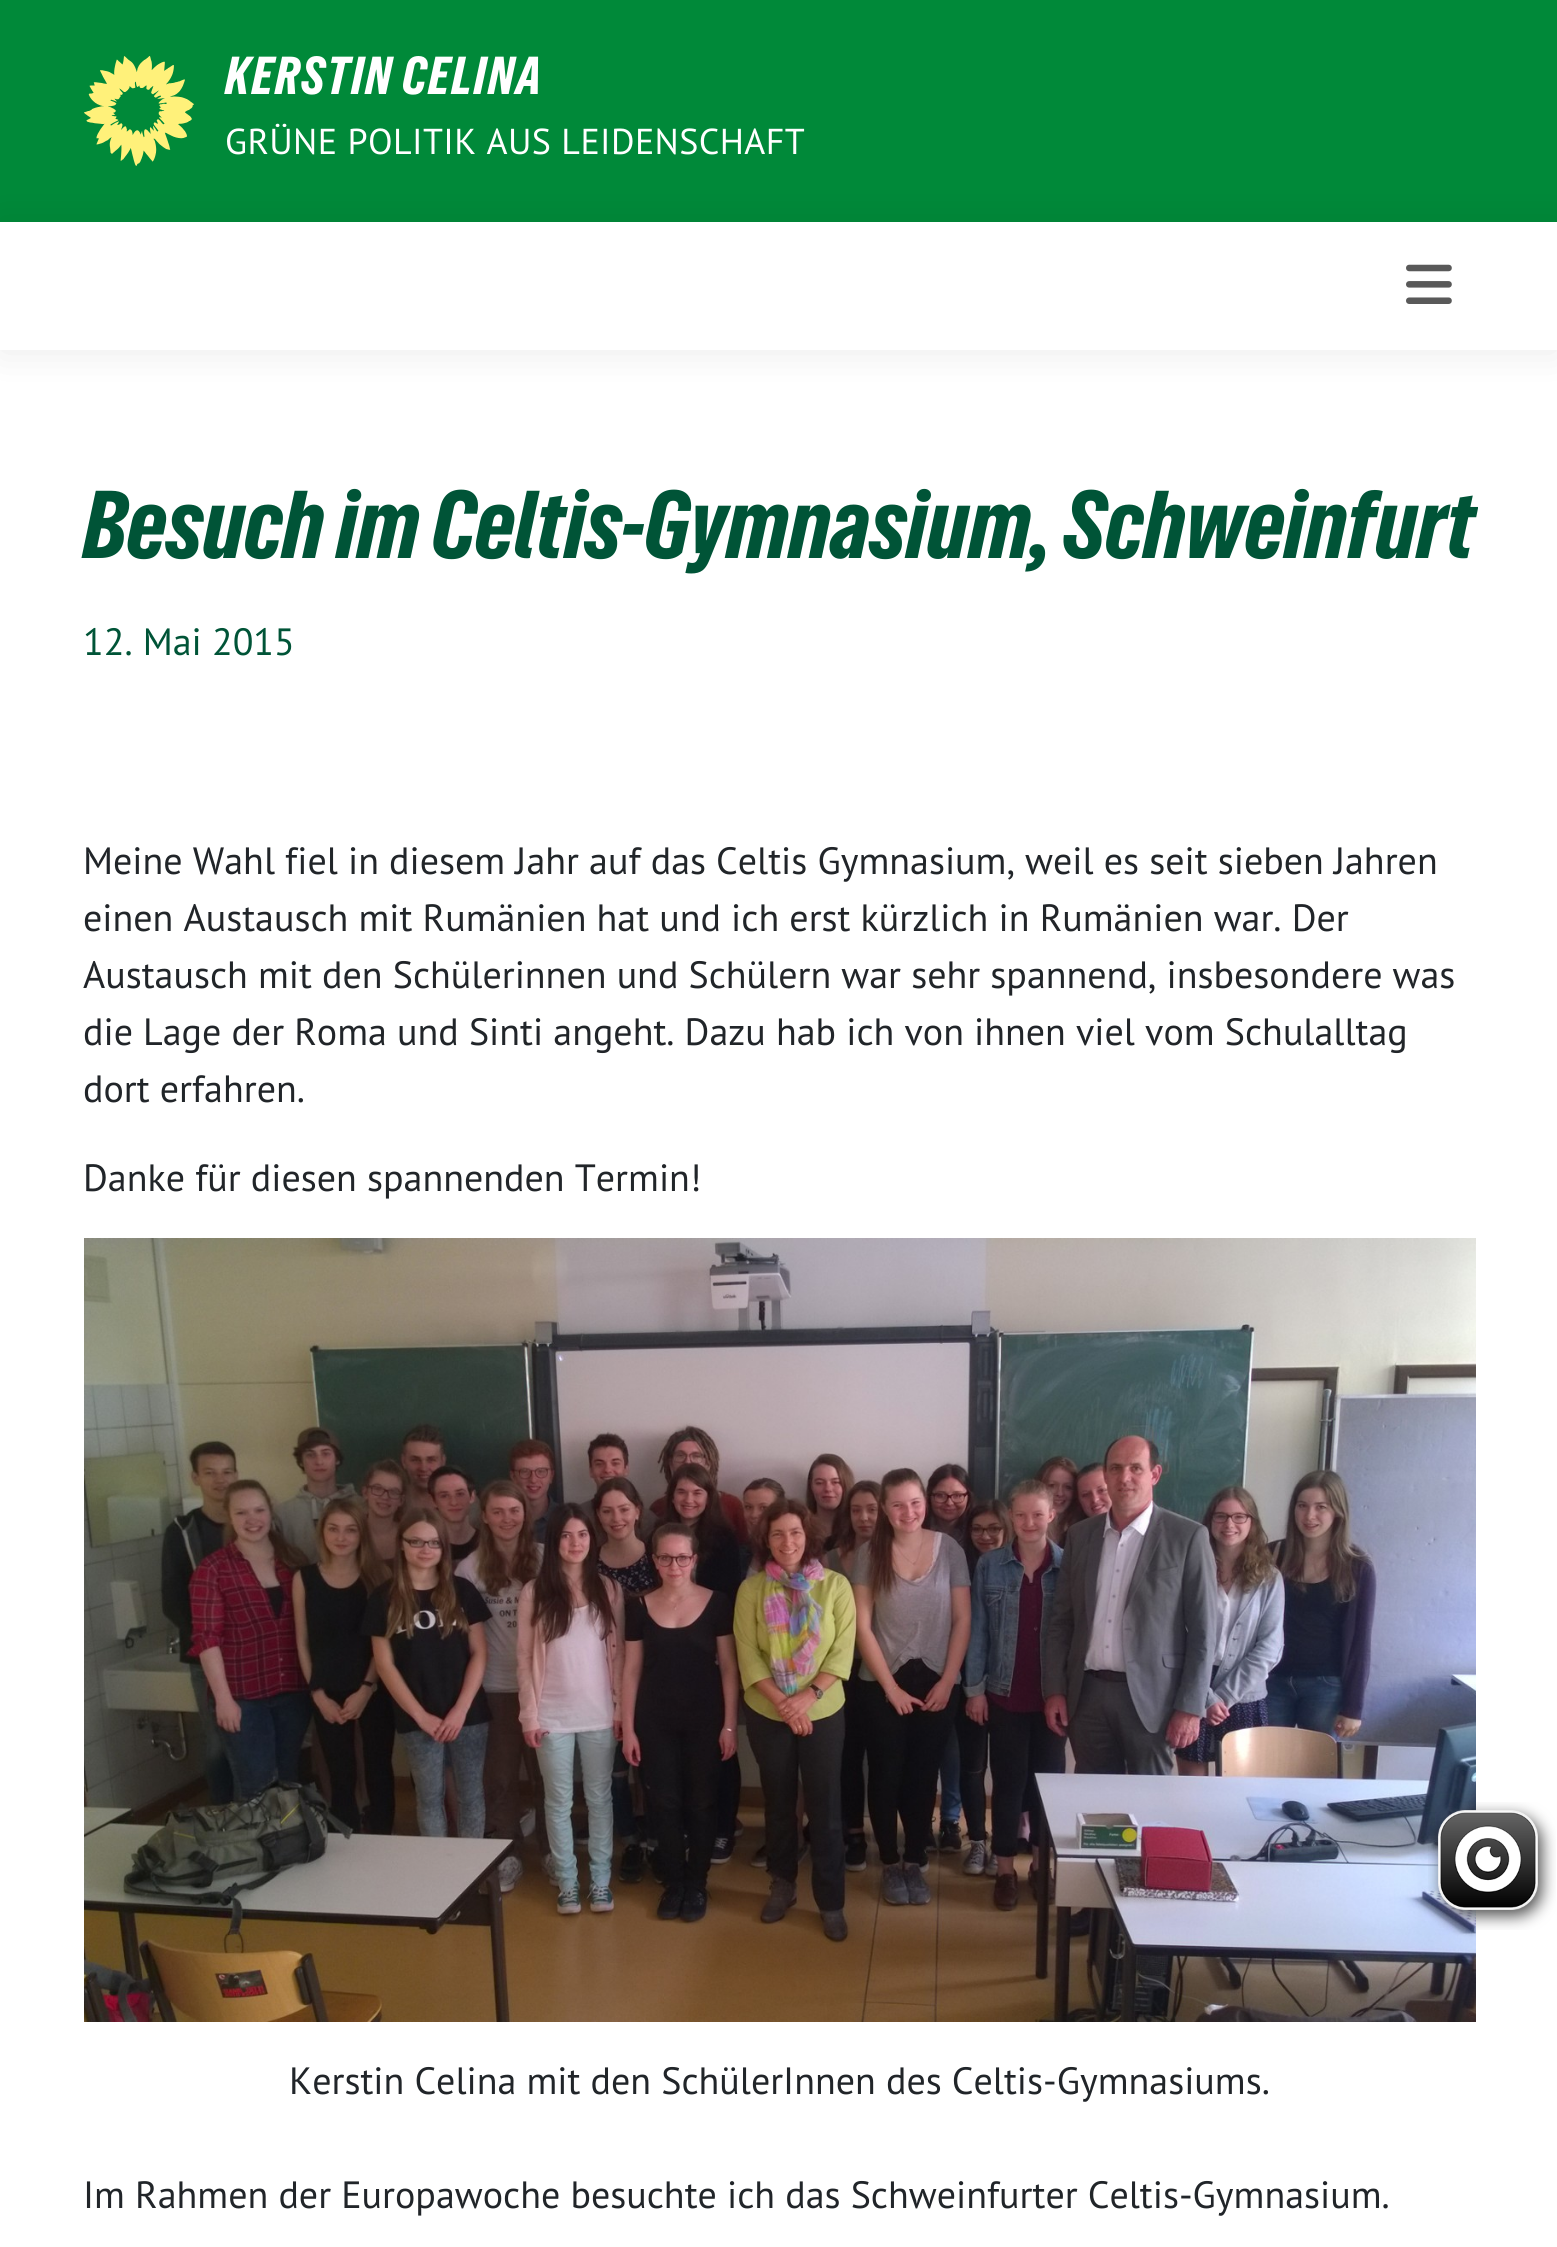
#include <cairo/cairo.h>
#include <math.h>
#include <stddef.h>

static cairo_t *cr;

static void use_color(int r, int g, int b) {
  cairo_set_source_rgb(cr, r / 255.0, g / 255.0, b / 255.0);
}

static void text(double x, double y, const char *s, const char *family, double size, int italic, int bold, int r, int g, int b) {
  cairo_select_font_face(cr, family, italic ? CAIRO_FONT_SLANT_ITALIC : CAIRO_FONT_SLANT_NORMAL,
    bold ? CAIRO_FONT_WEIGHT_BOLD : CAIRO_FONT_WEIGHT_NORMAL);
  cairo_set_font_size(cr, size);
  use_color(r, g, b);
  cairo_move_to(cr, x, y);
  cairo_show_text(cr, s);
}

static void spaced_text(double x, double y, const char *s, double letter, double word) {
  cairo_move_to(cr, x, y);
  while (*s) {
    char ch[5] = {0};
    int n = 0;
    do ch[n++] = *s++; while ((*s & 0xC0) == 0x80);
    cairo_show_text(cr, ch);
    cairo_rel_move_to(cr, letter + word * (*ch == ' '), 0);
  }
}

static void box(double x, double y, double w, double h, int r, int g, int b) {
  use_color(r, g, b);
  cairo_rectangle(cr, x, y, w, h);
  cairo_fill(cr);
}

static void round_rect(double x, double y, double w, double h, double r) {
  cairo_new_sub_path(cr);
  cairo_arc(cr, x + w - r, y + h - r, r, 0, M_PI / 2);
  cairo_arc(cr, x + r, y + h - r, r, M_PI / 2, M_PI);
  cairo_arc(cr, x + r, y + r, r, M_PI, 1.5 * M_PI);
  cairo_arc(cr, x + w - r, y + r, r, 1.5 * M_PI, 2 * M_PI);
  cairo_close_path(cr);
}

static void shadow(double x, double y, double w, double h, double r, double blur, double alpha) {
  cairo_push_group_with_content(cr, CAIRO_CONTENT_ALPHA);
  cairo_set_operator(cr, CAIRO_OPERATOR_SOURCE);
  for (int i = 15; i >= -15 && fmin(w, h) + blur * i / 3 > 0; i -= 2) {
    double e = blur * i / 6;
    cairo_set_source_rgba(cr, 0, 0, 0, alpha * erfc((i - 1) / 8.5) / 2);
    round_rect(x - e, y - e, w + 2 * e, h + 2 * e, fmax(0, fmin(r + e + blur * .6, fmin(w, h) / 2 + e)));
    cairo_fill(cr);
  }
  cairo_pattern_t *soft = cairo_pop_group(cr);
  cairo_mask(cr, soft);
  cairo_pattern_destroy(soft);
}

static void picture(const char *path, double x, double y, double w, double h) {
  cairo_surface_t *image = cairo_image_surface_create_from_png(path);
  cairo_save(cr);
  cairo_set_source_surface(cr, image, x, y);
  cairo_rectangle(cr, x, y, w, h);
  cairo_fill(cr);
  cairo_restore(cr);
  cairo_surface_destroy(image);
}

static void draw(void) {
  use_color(255, 255, 255);
  cairo_paint(cr);
  box(0, 0, 1557, 222, 0, 137, 57);
  picture("img_01.png", 84, 56, 110, 110);
  cairo_save(cr);
  cairo_set_fill_rule(cr, CAIRO_FILL_RULE_EVEN_ODD);
  cairo_new_path(cr);
  cairo_move_to(cr, 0, 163);
  cairo_line_to(cr, 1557, 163);
  cairo_line_to(cr, 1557, 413);
  cairo_line_to(cr, 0, 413);
  cairo_close_path(cr);
  cairo_move_to(cr, 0, 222);
  cairo_line_to(cr, 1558, 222);
  cairo_line_to(cr, 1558, 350);
  cairo_line_to(cr, 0, 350);
  cairo_close_path(cr);
  cairo_clip(cr);
  use_color(0, 0, 0);
  shadow(0, 224, 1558, 128, 0, 20, 0.08);
  cairo_restore(cr);
  picture("img_02.png", 1406, 264, 46, 40);
  picture("img_03.png", 84, 1238, 1392, 784);
  picture("img_04.png", 1428, 1802, 128, 128);
  cairo_select_font_face(cr, "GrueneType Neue", CAIRO_FONT_SLANT_NORMAL, CAIRO_FONT_WEIGHT_NORMAL);
  cairo_set_font_size(cr, 50);
  use_color(255, 255, 255);
  spaced_text(225, 94, "KERSTIN CELINA", 2, 0);
  cairo_select_font_face(cr, "PT Sans", CAIRO_FONT_SLANT_NORMAL, CAIRO_FONT_WEIGHT_NORMAL);
  cairo_set_font_size(cr, 36);
  spaced_text(225, 154, "GRÜNE POLITIK AUS LEIDENSCHAFT", 0.4, 0);
  text(83, 558, "Besuch im Celtis-Gymnasium, Schweinfurt", "GrueneType Neue", 90, 0, 0, 0, 84, 55);
  text(83, 655, "12. Mai 2015", "PT Sans", 38, 0, 0, 0, 84, 55);
  text(83, 874, "Meine Wahl fiel in diesem Jahr auf das Celtis Gymnasium, weil es seit sieben Jahren", "PT Sans", 38, 0, 0, 33, 37, 41);
  text(83, 931, "einen Austausch mit Rumänien hat und ich erst kürzlich in Rumänien war. Der", "PT Sans", 38, 0, 0, 33, 37, 41);
  text(83, 988, "Austausch mit den Schülerinnen und Schülern war sehr spannend, insbesondere was", "PT Sans", 38, 0, 0, 33, 37, 41);
  text(83, 1045, "die Lage der Roma und Sinti angeht. Dazu hab ich von ihnen viel vom Schulalltag", "PT Sans", 38, 0, 0, 33, 37, 41);
  text(83, 1102, "dort erfahren.", "PT Sans", 38, 0, 0, 33, 37, 41);
  text(83, 1191, "Danke für diesen spannenden Termin!", "PT Sans", 38, 0, 0, 33, 37, 41);
  text(289, 2094, "Kerstin Celina mit den SchülerInnen des Celtis-Gymnasiums.", "PT Sans", 38, 0, 0, 33, 37, 41);
  text(83, 2208, "Im Rahmen der Europawoche besuchte ich das Schweinfurter Celtis-Gymnasium.", "PT Sans", 38, 0, 0, 33, 37, 41);
}

int main(void) {
  cairo_surface_t *surface = cairo_image_surface_create(CAIRO_FORMAT_RGB24, 1557, 2247);
  cr = cairo_create(surface);
  cairo_font_options_t *options = cairo_font_options_create();
  cairo_font_options_set_hint_metrics(options, CAIRO_HINT_METRICS_OFF);
  cairo_font_options_set_hint_style(options, CAIRO_HINT_STYLE_NONE);
  cairo_set_font_options(cr, options);
  cairo_set_miter_limit(cr, 4);
  draw();
  cairo_surface_write_to_png(surface, "out.png");
  cairo_font_options_destroy(options);
  cairo_destroy(cr);
  cairo_surface_destroy(surface);
  return 0;
}
